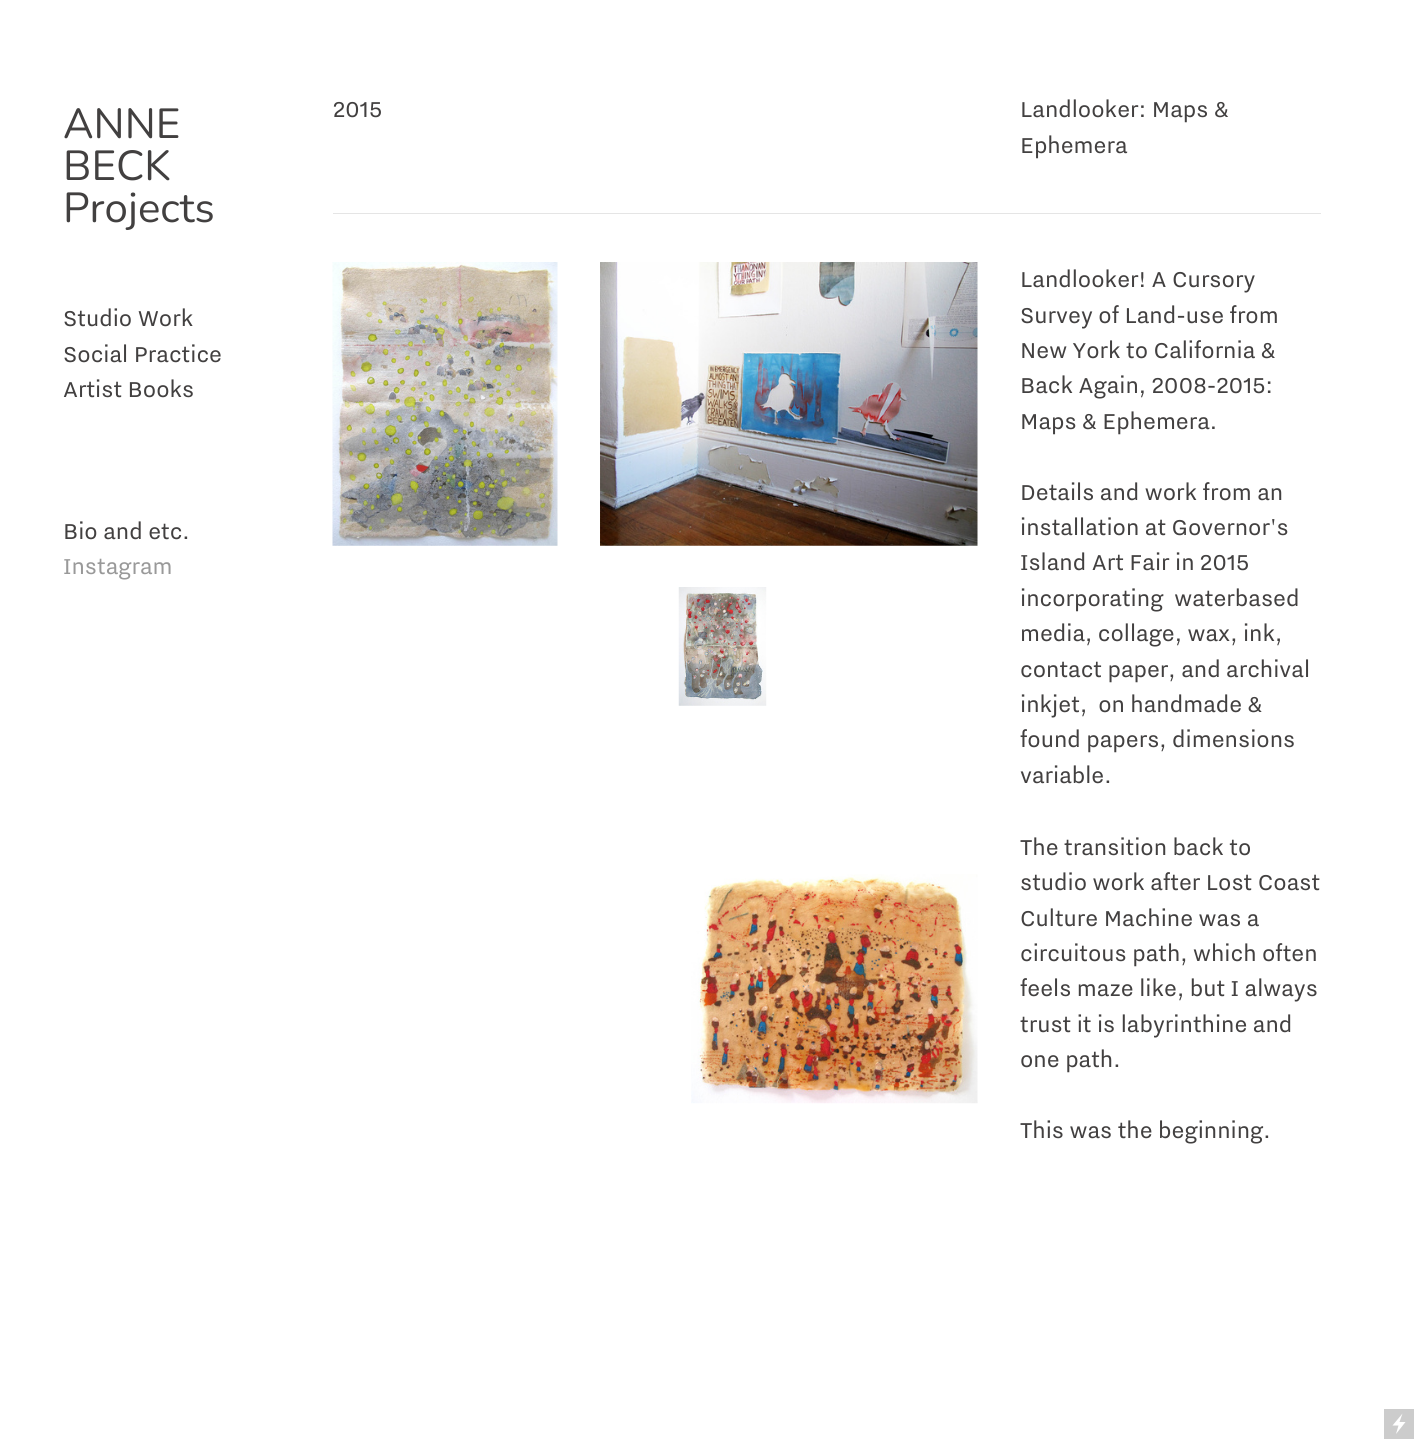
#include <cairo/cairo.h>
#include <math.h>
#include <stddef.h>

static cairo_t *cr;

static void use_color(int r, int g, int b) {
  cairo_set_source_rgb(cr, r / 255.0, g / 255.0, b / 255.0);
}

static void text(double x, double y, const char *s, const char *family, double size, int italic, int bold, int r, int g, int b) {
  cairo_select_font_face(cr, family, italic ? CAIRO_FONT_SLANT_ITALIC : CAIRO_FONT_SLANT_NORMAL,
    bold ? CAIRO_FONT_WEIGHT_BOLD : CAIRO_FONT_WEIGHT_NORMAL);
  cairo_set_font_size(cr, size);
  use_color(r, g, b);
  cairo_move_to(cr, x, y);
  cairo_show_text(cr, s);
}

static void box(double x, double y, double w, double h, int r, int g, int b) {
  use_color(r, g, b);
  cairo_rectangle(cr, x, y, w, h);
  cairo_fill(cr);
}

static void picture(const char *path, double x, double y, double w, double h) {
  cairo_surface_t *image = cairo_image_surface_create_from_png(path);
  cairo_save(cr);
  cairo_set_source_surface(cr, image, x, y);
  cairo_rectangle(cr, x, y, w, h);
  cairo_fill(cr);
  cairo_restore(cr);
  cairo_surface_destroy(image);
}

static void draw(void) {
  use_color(255, 255, 255);
  cairo_paint(cr);
  box(333, 213, 988, 1, 229, 229, 229);
  picture("img_01.png", 332, 262, 226, 284);
  picture("img_02.png", 600, 262, 378, 284);
  picture("img_03.png", 678, 587, 89, 119);
  picture("img_04.png", 691, 874, 287, 230);
  box(1384, 1409, 30, 30, 204, 204, 204);
  use_color(255, 255, 255);
  cairo_new_path(cr);
  cairo_move_to(cr, 1405.5, 1422);
  cairo_line_to(cr, 1399.5, 1422);
  cairo_line_to(cr, 1402.5, 1413.5);
  cairo_line_to(cr, 1392.5, 1425.5);
  cairo_line_to(cr, 1398.5, 1425.5);
  cairo_line_to(cr, 1396, 1434);
  cairo_close_path(cr);
  cairo_fill(cr);
  text(63, 138, "ANNE", "Nunito", 42, 0, 0, 66, 64, 64);
  text(63, 180, "BECK", "Nunito", 42, 0, 0, 66, 64, 64);
  text(63, 222, "Projects", "Nunito", 42, 0, 0, 66, 64, 64);
  text(63, 326, "Studio Work", "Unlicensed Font", 27.25, 0, 0, 66, 64, 64);
  text(63, 362, "Social Practice", "Unlicensed Font", 27.25, 0, 0, 66, 64, 64);
  text(63, 397, "Artist Books", "Unlicensed Font", 27.25, 0, 0, 66, 64, 64);
  text(63, 539, "Bio and etc.", "Unlicensed Font", 27.25, 0, 0, 66, 64, 64);
  text(63, 574, "Instagram", "Unlicensed Font", 27.25, 0, 0, 153, 153, 153);
  text(333, 117, "2015", "Unlicensed Font", 27.25, 0, 0, 66, 64, 64);
  text(1020, 117, "Landlooker: Maps &", "Unlicensed Font", 27.25, 0, 0, 66, 64, 64);
  text(1020, 153, "Ephemera", "Unlicensed Font", 27.25, 0, 0, 66, 64, 64);
  text(1020, 287, "Landlooker! A Cursory", "Unlicensed Font", 27.25, 0, 0, 66, 64, 64);
  text(1020, 323, "Survey of Land-use from", "Unlicensed Font", 27.25, 0, 0, 66, 64, 64);
  text(1020, 358, "New York to California &", "Unlicensed Font", 27.25, 0, 0, 66, 64, 64);
  text(1020, 393, "Back Again, 2008-2015:", "Unlicensed Font", 27.25, 0, 0, 66, 64, 64);
  text(1020, 429, "Maps & Ephemera.", "Unlicensed Font", 27.25, 0, 0, 66, 64, 64);
  text(1020, 500, "Details and work from an", "Unlicensed Font", 27.25, 0, 0, 66, 64, 64);
  text(1020, 535, "installation at Governor's", "Unlicensed Font", 27.25, 0, 0, 66, 64, 64);
  text(1020, 570, "Island Art Fair in 2015", "Unlicensed Font", 27.25, 0, 0, 66, 64, 64);
  text(1020, 606, "incorporating  waterbased", "Unlicensed Font", 27.25, 0, 0, 66, 64, 64);
  text(1020, 641, "media, collage, wax, ink,", "Unlicensed Font", 27.25, 0, 0, 66, 64, 64);
  text(1020, 677, "contact paper, and archival", "Unlicensed Font", 27.25, 0, 0, 66, 64, 64);
  text(1020, 712, "inkjet,  on handmade &", "Unlicensed Font", 27.25, 0, 0, 66, 64, 64);
  text(1020, 747, "found papers, dimensions", "Unlicensed Font", 27.25, 0, 0, 66, 64, 64);
  text(1020, 783, "variable.", "Unlicensed Font", 27.25, 0, 0, 66, 64, 64);
  text(1020, 855, "The transition back to", "Unlicensed Font", 27.25, 0, 0, 66, 64, 64);
  text(1020, 890, "studio work after Lost Coast", "Unlicensed Font", 27.25, 0, 0, 66, 64, 64);
  text(1020, 926, "Culture Machine was a", "Unlicensed Font", 27.25, 0, 0, 66, 64, 64);
  text(1020, 961, "circuitous path, which often", "Unlicensed Font", 27.25, 0, 0, 66, 64, 64);
  text(1020, 996, "feels maze like, but I always", "Unlicensed Font", 27.25, 0, 0, 66, 64, 64);
  text(1020, 1032, "trust it is labyrinthine and", "Unlicensed Font", 27.25, 0, 0, 66, 64, 64);
  text(1020, 1067, "one path.", "Unlicensed Font", 27.25, 0, 0, 66, 64, 64);
  text(1020, 1138, "This was the beginning.", "Unlicensed Font", 27.25, 0, 0, 66, 64, 64);
}

int main(void) {
  cairo_surface_t *surface = cairo_image_surface_create(CAIRO_FORMAT_RGB24, 1426, 1451);
  cr = cairo_create(surface);
  cairo_font_options_t *options = cairo_font_options_create();
  cairo_font_options_set_hint_metrics(options, CAIRO_HINT_METRICS_OFF);
  cairo_font_options_set_hint_style(options, CAIRO_HINT_STYLE_NONE);
  cairo_set_font_options(cr, options);
  cairo_set_miter_limit(cr, 4);
  draw();
  cairo_surface_write_to_png(surface, "out.png");
  cairo_font_options_destroy(options);
  cairo_destroy(cr);
  cairo_surface_destroy(surface);
  return 0;
}
